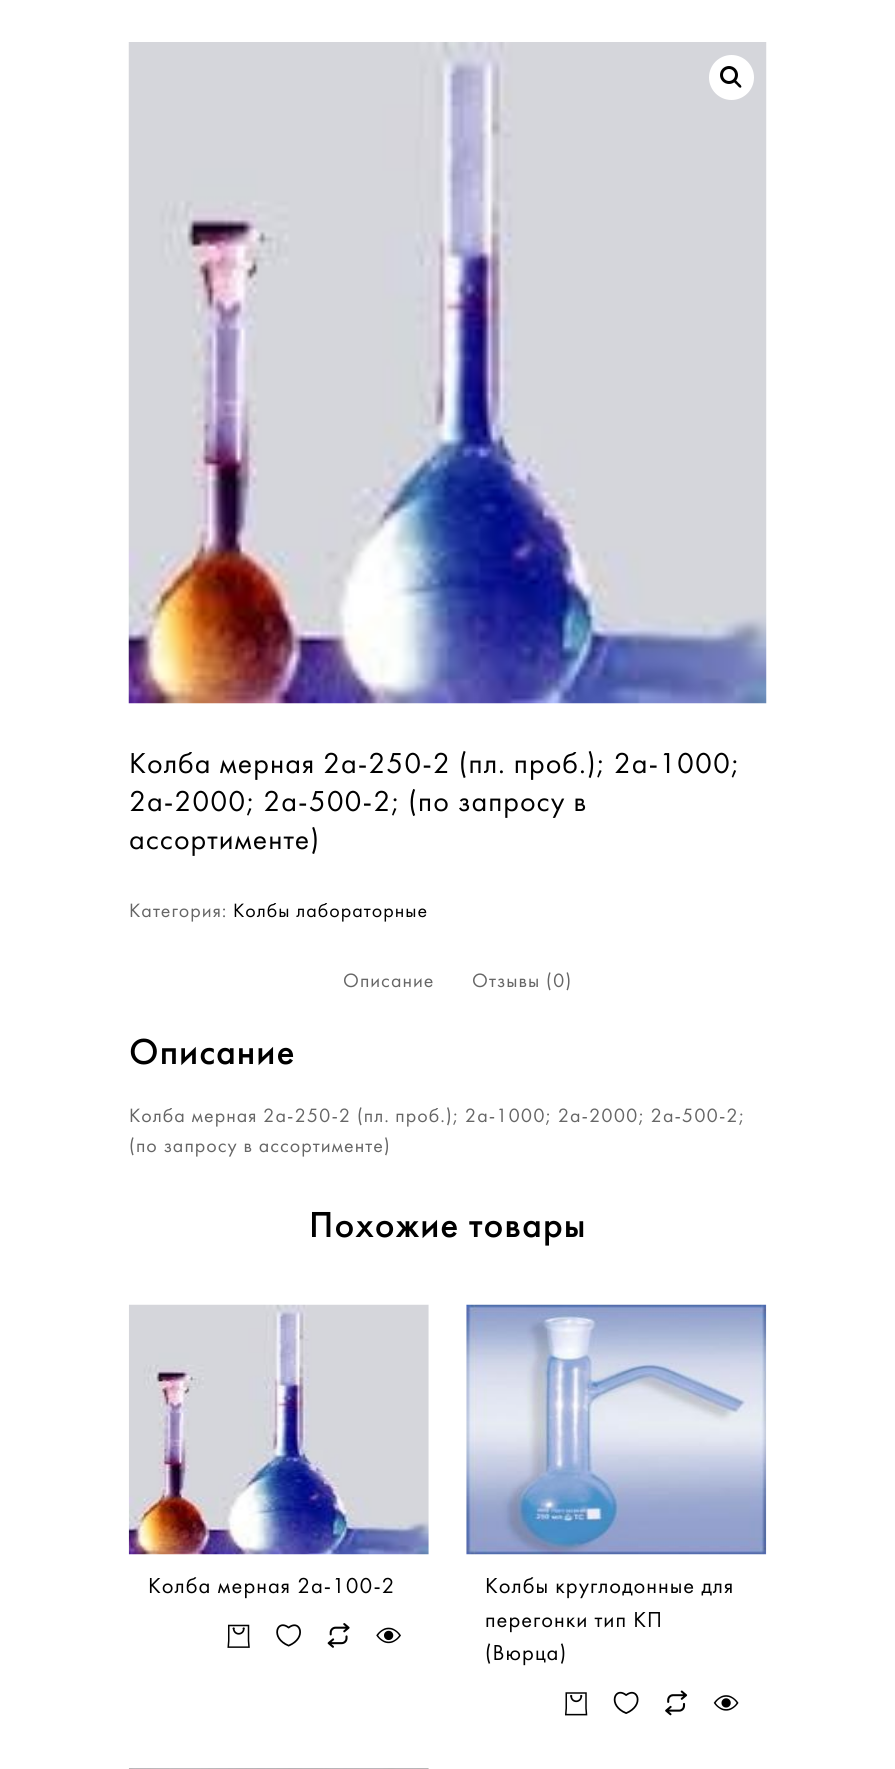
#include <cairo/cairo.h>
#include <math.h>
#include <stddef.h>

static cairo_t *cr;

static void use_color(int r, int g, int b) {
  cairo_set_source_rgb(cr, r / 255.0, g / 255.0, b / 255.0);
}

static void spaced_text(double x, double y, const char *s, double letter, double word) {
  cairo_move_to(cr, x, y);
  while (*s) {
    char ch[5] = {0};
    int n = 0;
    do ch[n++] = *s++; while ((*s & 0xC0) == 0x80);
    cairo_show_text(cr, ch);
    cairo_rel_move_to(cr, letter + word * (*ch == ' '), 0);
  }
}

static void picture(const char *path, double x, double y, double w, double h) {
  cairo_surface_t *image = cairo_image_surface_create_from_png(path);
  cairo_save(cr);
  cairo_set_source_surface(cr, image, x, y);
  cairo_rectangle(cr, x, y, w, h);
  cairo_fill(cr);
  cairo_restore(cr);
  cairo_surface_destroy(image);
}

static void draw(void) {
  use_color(255, 255, 255);
  cairo_paint(cr);
  picture("img_01.png", 128, 42, 639, 662);
  use_color(255, 255, 255);
  cairo_arc(cr, 731.5, 77.5, 22.5, 0, 2 * M_PI);
  cairo_fill(cr);
  cairo_arc(cr, 729, 75, 7.5, 0, 2 * M_PI);
  use_color(0, 0, 0);
  cairo_set_line_width(cr, 3);
  cairo_stroke(cr);
  cairo_new_path(cr);
  cairo_move_to(cr, 734, 80);
  cairo_curve_to(cr, 735.5, 79, 737.5, 82, 738.5, 83);
  cairo_curve_to(cr, 739, 83.5, 742.5, 86, 741, 87.5);
  cairo_curve_to(cr, 739.5, 88.5, 737.5, 85.5, 736.5, 84.5);
  cairo_curve_to(cr, 736, 84, 732.5, 81.5, 734, 80);
  cairo_close_path(cr);
  cairo_fill(cr);
  picture("img_02.png", 128, 1304, 301, 251);
  picture("img_03.png", 227, 1624, 23, 24);
  picture("img_04.png", 276, 1624, 25, 23);
  picture("img_05.png", 327, 1623, 23, 25);
  picture("img_06.png", 376, 1627, 25, 17);
  picture("img_07.png", 466, 1304, 301, 251);
  picture("img_08.png", 565, 1692, 23, 24);
  picture("img_09.png", 613, 1691, 26, 23);
  picture("img_10.png", 665, 1690, 23, 26);
  picture("img_11.png", 713, 1695, 26, 16);
  picture("img_12.png", 128, 1768, 301, 1);
  cairo_select_font_face(cr, "Futura PT", CAIRO_FONT_SLANT_NORMAL, CAIRO_FONT_WEIGHT_NORMAL);
  cairo_set_font_size(cr, 29.9);
  spaced_text(129, 773, "Колба мерная 2а-250-2 (пл. проб.); 2а-1000;", 1, 0);
  spaced_text(129, 811, "2а-2000; 2а-500-2; (по запросу в", 1, 0);
  spaced_text(129, 849, "ассортименте)", 1, 0);
  cairo_set_font_size(cr, 20);
  use_color(102, 102, 102);
  spaced_text(129, 917, "Категория:", 1, 0);
  use_color(0, 0, 0);
  spaced_text(233, 917, "Колбы лабораторные", 1, 0);
  use_color(102, 102, 102);
  spaced_text(343, 987, "Описание", 1, 0);
  spaced_text(472, 987, "Отзывы (0)", 1, 0);
  cairo_select_font_face(cr, "Futura PT Medium", CAIRO_FONT_SLANT_NORMAL, CAIRO_FONT_WEIGHT_NORMAL);
  cairo_set_font_size(cr, 37.5);
  use_color(0, 0, 0);
  spaced_text(129, 1064, "Описание", 1, 0);
  cairo_select_font_face(cr, "Futura PT", CAIRO_FONT_SLANT_NORMAL, CAIRO_FONT_WEIGHT_NORMAL);
  cairo_set_font_size(cr, 20);
  use_color(102, 102, 102);
  spaced_text(129, 1122, "Колба мерная 2а-250-2 (пл. проб.); 2а-1000; 2а-2000; 2а-500-2;", 1, 0);
  spaced_text(129, 1152, "(по запросу в ассортименте)", 1, 0);
  cairo_select_font_face(cr, "Futura PT Medium", CAIRO_FONT_SLANT_NORMAL, CAIRO_FONT_WEIGHT_NORMAL);
  cairo_set_font_size(cr, 37.5);
  use_color(0, 0, 0);
  spaced_text(309, 1237, "Похожие товары", 1, 0);
  cairo_select_font_face(cr, "Futura PT", CAIRO_FONT_SLANT_NORMAL, CAIRO_FONT_WEIGHT_NORMAL);
  cairo_set_font_size(cr, 22.5);
  spaced_text(148, 1593, "Колба мерная 2а-100-2", 1, 0);
  spaced_text(485, 1593, "Колбы круглодонные для", 1, 0);
  spaced_text(485, 1627, "перегонки тип КП", 1, 0);
  spaced_text(485, 1660, "(Вюрца)", 1, 0);
}

int main(void) {
  cairo_surface_t *surface = cairo_image_surface_create(CAIRO_FORMAT_RGB24, 895, 1769);
  cr = cairo_create(surface);
  cairo_font_options_t *options = cairo_font_options_create();
  cairo_font_options_set_hint_metrics(options, CAIRO_HINT_METRICS_OFF);
  cairo_font_options_set_hint_style(options, CAIRO_HINT_STYLE_NONE);
  cairo_set_font_options(cr, options);
  cairo_set_miter_limit(cr, 4);
  draw();
  cairo_surface_write_to_png(surface, "out.png");
  cairo_font_options_destroy(options);
  cairo_destroy(cr);
  cairo_surface_destroy(surface);
  return 0;
}
